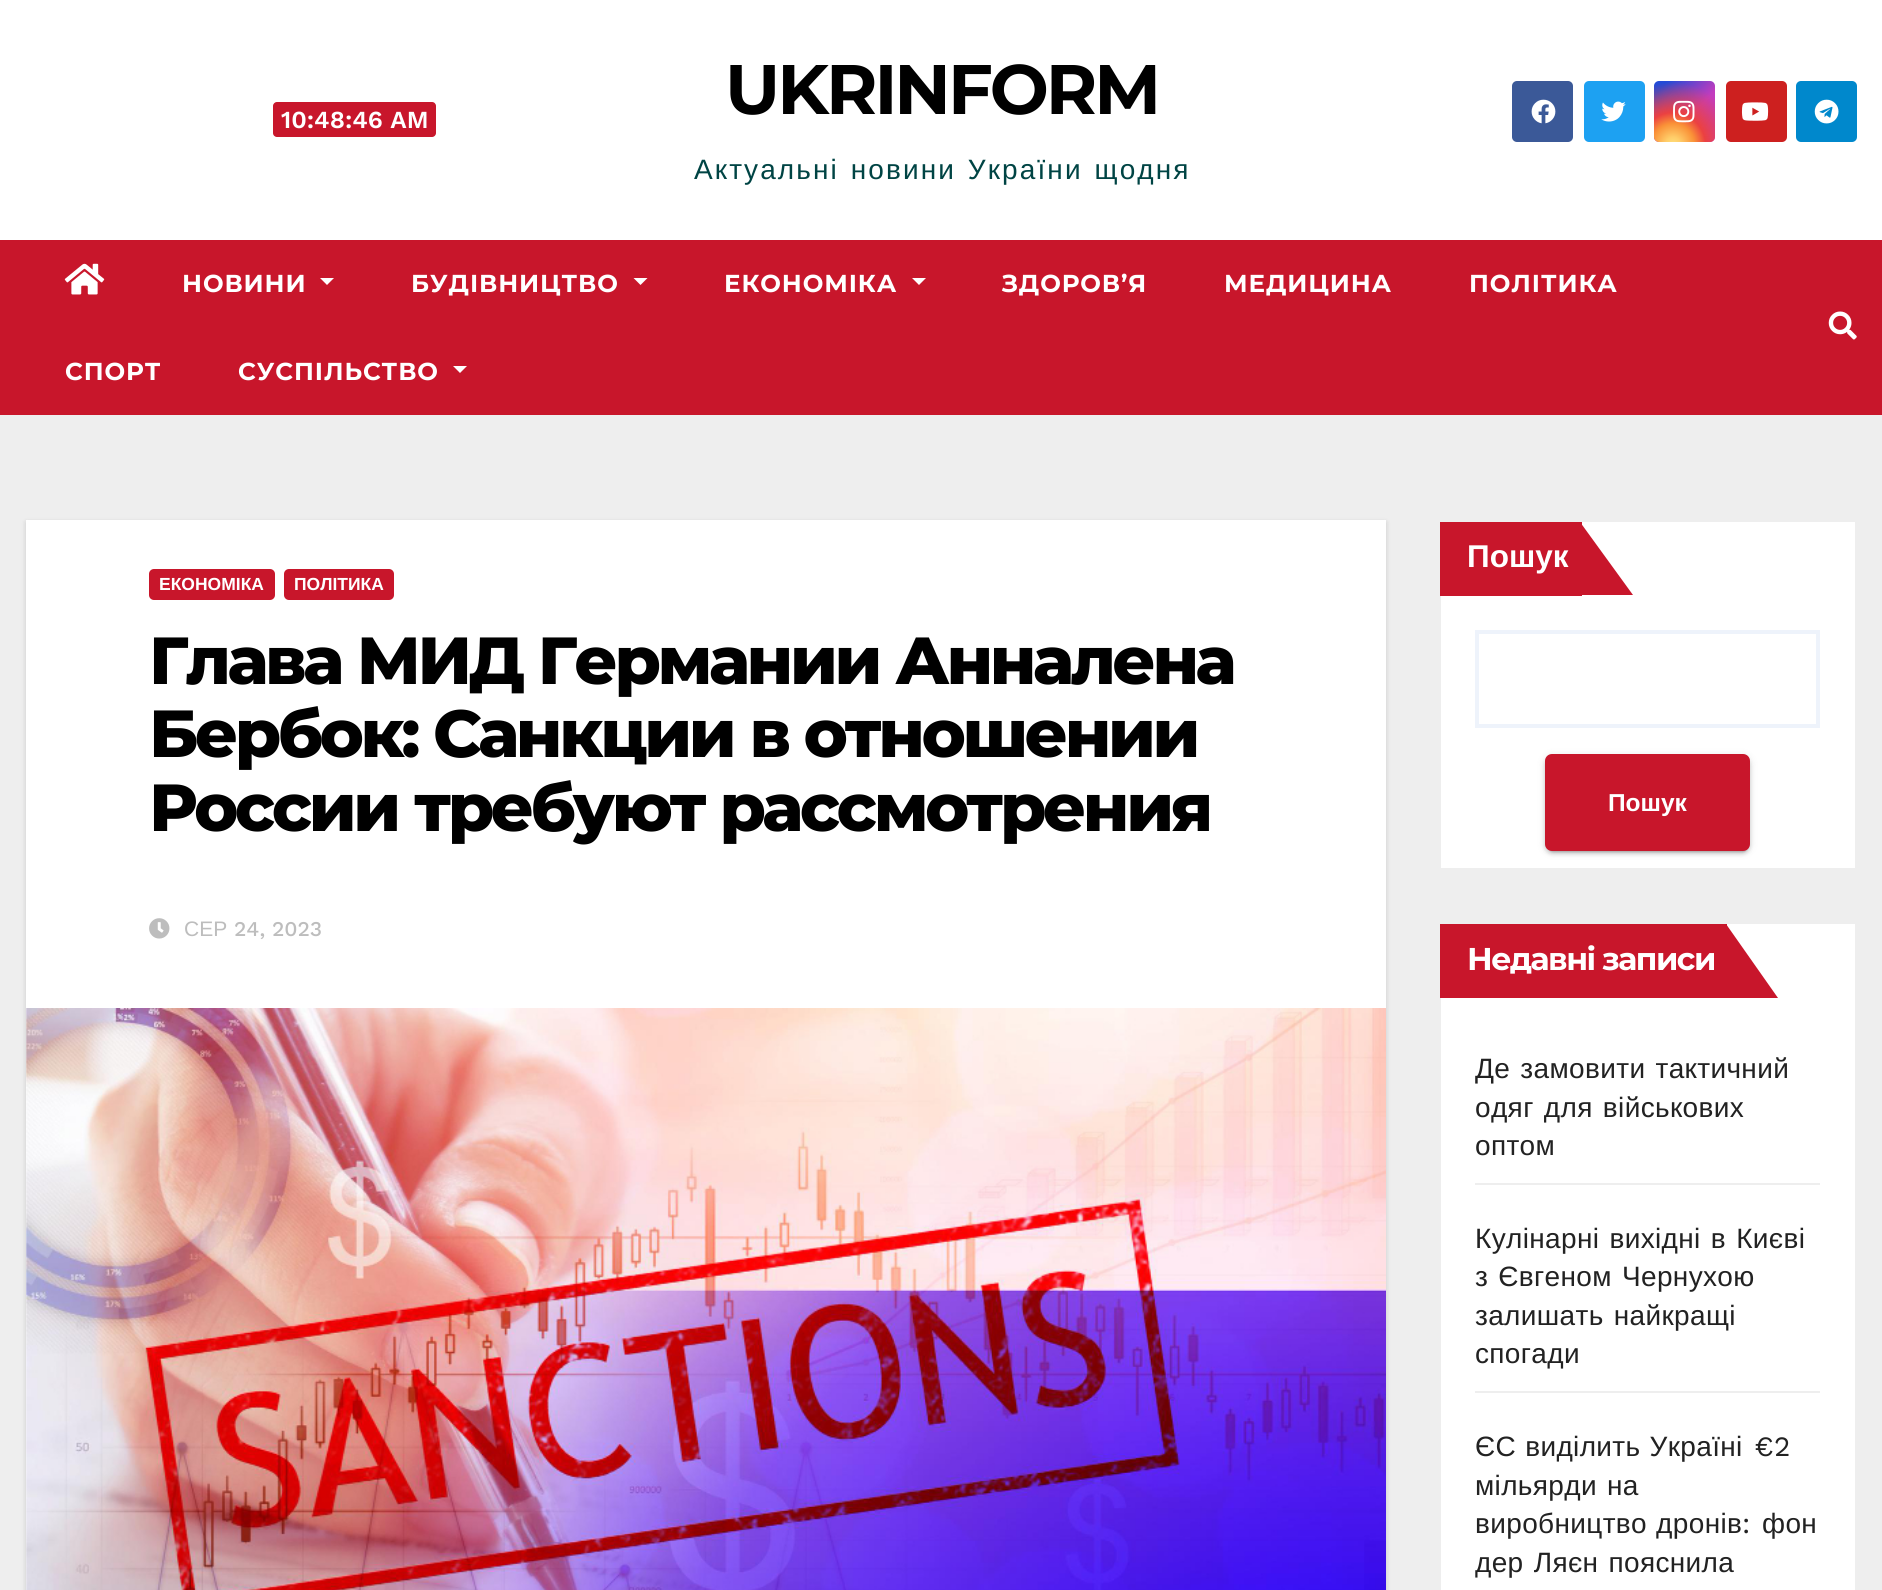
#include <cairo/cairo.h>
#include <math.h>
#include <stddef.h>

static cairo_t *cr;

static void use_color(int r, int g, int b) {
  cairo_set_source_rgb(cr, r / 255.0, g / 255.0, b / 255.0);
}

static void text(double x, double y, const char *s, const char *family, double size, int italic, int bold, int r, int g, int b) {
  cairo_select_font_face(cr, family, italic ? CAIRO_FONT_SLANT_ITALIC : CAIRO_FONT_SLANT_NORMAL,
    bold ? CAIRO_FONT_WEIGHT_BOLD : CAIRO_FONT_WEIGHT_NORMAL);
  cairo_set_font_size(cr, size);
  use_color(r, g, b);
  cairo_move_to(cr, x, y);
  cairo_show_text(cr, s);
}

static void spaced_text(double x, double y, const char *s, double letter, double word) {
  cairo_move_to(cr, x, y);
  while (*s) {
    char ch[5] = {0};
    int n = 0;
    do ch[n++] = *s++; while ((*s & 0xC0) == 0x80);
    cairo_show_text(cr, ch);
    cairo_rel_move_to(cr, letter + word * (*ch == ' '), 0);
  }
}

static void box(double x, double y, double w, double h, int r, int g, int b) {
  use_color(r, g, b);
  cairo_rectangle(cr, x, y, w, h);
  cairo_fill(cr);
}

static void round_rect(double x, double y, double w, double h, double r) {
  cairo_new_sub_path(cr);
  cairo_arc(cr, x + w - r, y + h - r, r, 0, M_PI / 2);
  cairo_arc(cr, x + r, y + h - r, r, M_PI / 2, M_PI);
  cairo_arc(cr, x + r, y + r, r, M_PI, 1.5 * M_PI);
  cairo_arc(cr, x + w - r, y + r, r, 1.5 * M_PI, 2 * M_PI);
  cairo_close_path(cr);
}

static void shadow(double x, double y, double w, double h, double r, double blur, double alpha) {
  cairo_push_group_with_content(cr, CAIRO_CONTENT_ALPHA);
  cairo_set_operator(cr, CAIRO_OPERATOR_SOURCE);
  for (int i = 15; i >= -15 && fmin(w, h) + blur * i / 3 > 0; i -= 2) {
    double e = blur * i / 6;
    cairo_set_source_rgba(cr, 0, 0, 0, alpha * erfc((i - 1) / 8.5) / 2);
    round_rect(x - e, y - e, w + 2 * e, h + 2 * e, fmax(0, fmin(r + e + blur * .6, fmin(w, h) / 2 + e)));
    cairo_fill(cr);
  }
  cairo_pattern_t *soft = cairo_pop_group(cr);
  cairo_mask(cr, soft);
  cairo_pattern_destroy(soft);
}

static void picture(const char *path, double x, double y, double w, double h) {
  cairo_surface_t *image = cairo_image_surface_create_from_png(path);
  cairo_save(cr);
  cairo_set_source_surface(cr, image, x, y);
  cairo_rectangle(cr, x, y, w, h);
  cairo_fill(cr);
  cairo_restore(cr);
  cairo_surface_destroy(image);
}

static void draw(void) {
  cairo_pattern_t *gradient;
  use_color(238, 238, 238);
  cairo_paint(cr);
  box(0, 0, 1882, 240, 255, 255, 255);
  use_color(200, 22, 43);
  round_rect(273, 102, 163, 35, 4);
  cairo_fill(cr);
  use_color(59, 89, 152);
  round_rect(1512, 81, 61, 61, 5);
  cairo_fill(cr);
  picture("img_01.png", 1531, 99, 25, 25);
  use_color(29, 161, 242);
  round_rect(1584, 81, 61, 61, 5);
  cairo_fill(cr);
  picture("img_02.png", 1601, 101, 25, 21);
  gradient = cairo_pattern_create_linear(1654, 81, 1715, 142);
  cairo_pattern_add_color_stop_rgba(gradient, 0.12, 0.137, 0.294, 0.843, 1);
  cairo_pattern_add_color_stop_rgba(gradient, 0.58, 0.765, 0.235, 0.745, 1);
  cairo_set_source(cr, gradient);
  cairo_pattern_destroy(gradient);
  round_rect(1654, 81, 61, 61, 5);
  cairo_fill(cr);
  gradient = cairo_pattern_create_radial(1673, 145, 0, 1673, 145, 77);
  cairo_pattern_add_color_stop_rgba(gradient, 0, 1, 0.882, 0.49, 1);
  cairo_pattern_add_color_stop_rgba(gradient, 0.1, 1, 0.804, 0.412, 1);
  cairo_pattern_add_color_stop_rgba(gradient, 0.28, 0.98, 0.569, 0.216, 1);
  cairo_pattern_add_color_stop_rgba(gradient, 0.42, 0.922, 0.255, 0.255, 1);
  cairo_pattern_add_color_stop_rgba(gradient, 0.82, 0.922, 0.255, 0.255, 0);
  cairo_set_source(cr, gradient);
  cairo_pattern_destroy(gradient);
  round_rect(1654, 81, 61, 61, 5);
  cairo_fill(cr);
  picture("img_03.png", 1673, 100, 22, 23);
  use_color(205, 32, 31);
  round_rect(1726, 81, 61, 61, 5);
  cairo_fill(cr);
  picture("img_04.png", 1741, 102, 28, 19);
  use_color(0, 136, 204);
  round_rect(1796, 81, 61, 61, 5);
  cairo_fill(cr);
  picture("img_05.png", 1814, 99, 25, 25);
  box(0, 240, 1882, 175, 200, 22, 43);
  picture("img_06.png", 64, 263, 41, 32);
  use_color(255, 255, 255);
  cairo_new_path(cr);
  cairo_move_to(cr, 320, 278);
  cairo_line_to(cr, 334, 278);
  cairo_line_to(cr, 327, 285);
  cairo_close_path(cr);
  cairo_fill(cr);
  cairo_new_path(cr);
  cairo_move_to(cr, 633.5, 278);
  cairo_line_to(cr, 647.5, 278);
  cairo_line_to(cr, 640.5, 285);
  cairo_close_path(cr);
  cairo_fill(cr);
  cairo_new_path(cr);
  cairo_move_to(cr, 912, 278);
  cairo_line_to(cr, 926, 278);
  cairo_line_to(cr, 919, 285);
  cairo_close_path(cr);
  cairo_fill(cr);
  cairo_new_path(cr);
  cairo_move_to(cr, 453, 366);
  cairo_line_to(cr, 467, 366);
  cairo_line_to(cr, 460, 373);
  cairo_close_path(cr);
  cairo_fill(cr);
  picture("img_07.png", 1828, 311, 29, 29);
  use_color(0, 0, 0);
  shadow(26, 522, 1360, 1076, 0, 2.5, 0.15);
  box(26, 520, 1360, 1070, 255, 255, 255);
  use_color(200, 22, 43);
  round_rect(149, 569, 126, 31, 5);
  cairo_fill(cr);
  round_rect(284, 569, 110, 31, 5);
  cairo_fill(cr);
  picture("img_08.png", 149, 918, 21, 21);
  picture("img_09.png", 26, 1008, 1360, 582);
  box(1441, 522, 414, 346, 255, 255, 255);
  box(1440, 522, 142, 74, 200, 22, 43);
  cairo_new_path(cr);
  cairo_move_to(cr, 1580, 595);
  cairo_line_to(cr, 1580, 522);
  cairo_line_to(cr, 1633, 595);
  cairo_close_path(cr);
  cairo_fill(cr);
  cairo_rectangle(cr, 1477, 632, 341, 94);
  use_color(238, 243, 251);
  cairo_set_line_width(cr, 4);
  cairo_stroke(cr);
  use_color(0, 0, 0);
  shadow(1545, 756, 205, 96, 7, 4.5, 0.12);
  shadow(1549, 763, 198, 89, 4, 1, 0.2);
  shadow(1545, 758, 205, 96, 7, 2, 0.14);
  use_color(200, 22, 43);
  round_rect(1546, 755, 203, 95, 6);
  cairo_fill_preserve(cr);
  cairo_set_line_width(cr, 2);
  cairo_stroke(cr);
  box(1441, 924, 414, 666, 255, 255, 255);
  box(1440, 924, 287, 74, 200, 22, 43);
  cairo_new_path(cr);
  cairo_move_to(cr, 1726, 998);
  cairo_line_to(cr, 1726, 924);
  cairo_line_to(cr, 1778, 998);
  cairo_close_path(cr);
  cairo_fill(cr);
  box(1475, 1183, 345, 2, 238, 238, 238);
  box(1475, 1391, 345, 2, 238, 238, 238);
  text(281, 128, "10:48:46 AM", "Work Sans SemiBold", 24.5, 0, 0, 255, 255, 255);
  cairo_select_font_face(cr, "Montserrat", CAIRO_FONT_SLANT_NORMAL, CAIRO_FONT_WEIGHT_BOLD);
  cairo_set_font_size(cr, 70);
  use_color(0, 0, 0);
  spaced_text(725, 114, "UKRINFORM", -3, 0);
  cairo_select_font_face(cr, "Liberation Sans", CAIRO_FONT_SLANT_NORMAL, CAIRO_FONT_WEIGHT_NORMAL);
  cairo_set_font_size(cr, 28);
  use_color(0, 68, 68);
  spaced_text(694, 179, "Актуальні новини України щодня", 2.1, 2);
  cairo_select_font_face(cr, "Montserrat", CAIRO_FONT_SLANT_NORMAL, CAIRO_FONT_WEIGHT_BOLD);
  cairo_set_font_size(cr, 24.5);
  use_color(255, 255, 255);
  spaced_text(182, 292, "НОВИНИ", 0.9, 0);
  spaced_text(411, 292, "БУДІВНИЦТВО", 0.9, 0);
  spaced_text(724, 292, "ЕКОНОМІКА", 0.9, 0);
  spaced_text(1002, 292, "ЗДОРОВ’Я", 0.9, 0);
  spaced_text(1224, 292, "МЕДИЦИНА", 0.9, 0);
  spaced_text(1469, 292, "ПОЛІТИКА", 0.9, 0);
  spaced_text(65, 380, "СПОРТ", 0.9, 0);
  spaced_text(238, 380, "СУСПІЛЬСТВО", 0.9, 0);
  text(159, 590, "ЕКОНОМІКА", "Liberation Sans", 17.5, 0, 1, 255, 255, 255);
  text(294, 590, "ПОЛІТИКА", "Liberation Sans", 17.5, 0, 1, 255, 255, 255);
  cairo_select_font_face(cr, "Montserrat ExtraBold", CAIRO_FONT_SLANT_NORMAL, CAIRO_FONT_WEIGHT_NORMAL);
  cairo_set_font_size(cr, 66.5);
  use_color(0, 0, 0);
  spaced_text(149, 684, "Глава МИД Германии Анналена", -3.3, 0);
  spaced_text(149, 757, "Бербок: Санкции в отношении", -3.3, 0);
  spaced_text(149, 831, "России требуют рассмотрения", -3.3, 0);
  text(184, 936, "СЕР", "Liberation Sans", 21, 0, 0, 189, 189, 189);
  text(234, 936, "24, 2023", "Work Sans Medium", 21, 0, 0, 189, 189, 189);
  text(1467, 567, "Пошук", "Liberation Sans", 31.5, 0, 1, 255, 255, 255);
  text(1608, 811, "Пошук", "Liberation Sans", 24.5, 0, 1, 255, 255, 255);
  cairo_select_font_face(cr, "Montserrat", CAIRO_FONT_SLANT_NORMAL, CAIRO_FONT_WEIGHT_BOLD);
  cairo_set_font_size(cr, 31.5);
  spaced_text(1467, 970, "Недавні записи", -1.5, 0);
  cairo_select_font_face(cr, "Liberation Sans", CAIRO_FONT_SLANT_NORMAL, CAIRO_FONT_WEIGHT_NORMAL);
  cairo_set_font_size(cr, 28);
  use_color(34, 34, 34);
  spaced_text(1475, 1078, "Де замовити тактичний", 0.35, 2);
  spaced_text(1475, 1117, "одяг для військових", 0.35, 2);
  spaced_text(1475, 1155, "оптом", 0.35, 0);
  spaced_text(1475, 1248, "Кулінарні вихідні в Києві", 0.35, 2);
  spaced_text(1475, 1286, "з Євгеном Чернухою", 0.35, 2);
  spaced_text(1475, 1325, "залишать найкращі", 0.35, 2);
  spaced_text(1475, 1363, "спогади", 0.35, 0);
  spaced_text(1475, 1456, "ЄС виділить Україні", 0.35, 1);
  cairo_select_font_face(cr, "Work Sans", CAIRO_FONT_SLANT_NORMAL, CAIRO_FONT_WEIGHT_NORMAL);
  spaced_text(1754, 1456, "€2", 0.35, 0);
  cairo_select_font_face(cr, "Liberation Sans", CAIRO_FONT_SLANT_NORMAL, CAIRO_FONT_WEIGHT_NORMAL);
  spaced_text(1475, 1495, "мільярди на", 0.35, 2);
  spaced_text(1475, 1533, "виробництво дронів", 0.35, 1);
  cairo_select_font_face(cr, "Work Sans", CAIRO_FONT_SLANT_NORMAL, CAIRO_FONT_WEIGHT_NORMAL);
  spaced_text(1742, 1533, ":", 0.35, 0);
  cairo_select_font_face(cr, "Liberation Sans", CAIRO_FONT_SLANT_NORMAL, CAIRO_FONT_WEIGHT_NORMAL);
  spaced_text(1762, 1533, "фон", 0.35, 0);
  spaced_text(1475, 1572, "дер Ляєн пояснила", 0.35, 2);
}

int main(void) {
  cairo_surface_t *surface = cairo_image_surface_create(CAIRO_FORMAT_RGB24, 1882, 1590);
  cr = cairo_create(surface);
  cairo_font_options_t *options = cairo_font_options_create();
  cairo_font_options_set_hint_metrics(options, CAIRO_HINT_METRICS_OFF);
  cairo_font_options_set_hint_style(options, CAIRO_HINT_STYLE_NONE);
  cairo_set_font_options(cr, options);
  cairo_set_miter_limit(cr, 4);
  draw();
  cairo_surface_write_to_png(surface, "out.png");
  cairo_font_options_destroy(options);
  cairo_destroy(cr);
  cairo_surface_destroy(surface);
  return 0;
}
